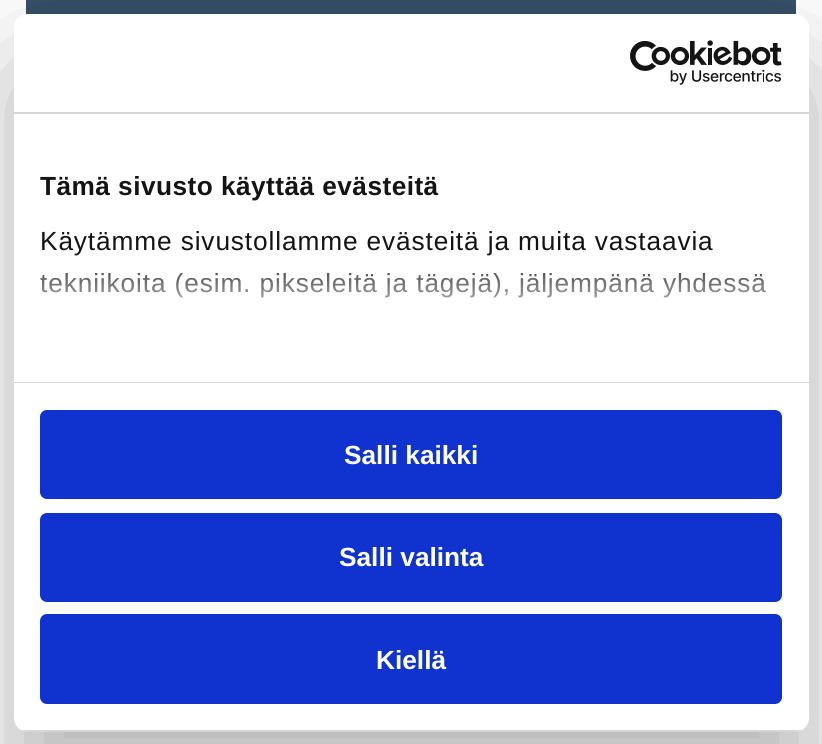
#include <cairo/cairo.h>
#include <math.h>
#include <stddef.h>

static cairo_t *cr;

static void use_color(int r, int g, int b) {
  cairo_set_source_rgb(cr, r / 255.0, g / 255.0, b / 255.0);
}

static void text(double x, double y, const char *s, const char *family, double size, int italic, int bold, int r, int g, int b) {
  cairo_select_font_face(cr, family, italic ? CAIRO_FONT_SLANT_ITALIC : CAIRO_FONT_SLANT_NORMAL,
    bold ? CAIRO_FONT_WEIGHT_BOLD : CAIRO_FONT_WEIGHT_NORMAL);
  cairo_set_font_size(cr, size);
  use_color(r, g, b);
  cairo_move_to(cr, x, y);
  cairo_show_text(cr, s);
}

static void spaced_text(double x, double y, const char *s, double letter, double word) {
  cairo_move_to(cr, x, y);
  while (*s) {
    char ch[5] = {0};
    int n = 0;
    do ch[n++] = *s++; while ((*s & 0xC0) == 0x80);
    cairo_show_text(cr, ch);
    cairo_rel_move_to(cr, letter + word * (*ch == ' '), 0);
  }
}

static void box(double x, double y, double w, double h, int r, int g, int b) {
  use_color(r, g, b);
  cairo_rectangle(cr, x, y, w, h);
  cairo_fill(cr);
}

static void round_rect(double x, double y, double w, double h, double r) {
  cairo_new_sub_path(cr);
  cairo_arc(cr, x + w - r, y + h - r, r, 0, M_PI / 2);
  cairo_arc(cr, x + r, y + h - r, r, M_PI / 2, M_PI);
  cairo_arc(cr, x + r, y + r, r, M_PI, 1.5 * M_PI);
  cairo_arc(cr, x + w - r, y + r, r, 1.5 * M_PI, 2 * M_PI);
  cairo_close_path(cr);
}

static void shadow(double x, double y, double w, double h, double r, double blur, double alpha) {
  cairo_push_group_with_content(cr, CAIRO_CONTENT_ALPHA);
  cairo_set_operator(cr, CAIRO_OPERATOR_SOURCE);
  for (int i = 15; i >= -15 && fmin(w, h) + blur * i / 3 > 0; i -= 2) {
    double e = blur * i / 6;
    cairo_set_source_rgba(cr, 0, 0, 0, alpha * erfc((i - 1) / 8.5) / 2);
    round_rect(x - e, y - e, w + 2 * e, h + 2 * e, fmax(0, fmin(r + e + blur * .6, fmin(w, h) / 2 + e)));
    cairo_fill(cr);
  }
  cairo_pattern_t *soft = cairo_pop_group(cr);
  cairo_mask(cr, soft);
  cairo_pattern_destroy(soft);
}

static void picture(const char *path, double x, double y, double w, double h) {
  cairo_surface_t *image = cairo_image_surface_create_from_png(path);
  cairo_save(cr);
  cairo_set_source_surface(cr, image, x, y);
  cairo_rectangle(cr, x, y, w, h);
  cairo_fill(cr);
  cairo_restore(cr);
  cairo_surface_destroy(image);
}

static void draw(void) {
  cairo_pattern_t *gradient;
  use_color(255, 255, 255);
  cairo_paint(cr);
  box(26, 0, 770, 15, 55, 80, 104);
  use_color(0, 0, 0);
  shadow(14, 70, 795, 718, 14, 59.5, 0.3);
  use_color(255, 255, 255);
  round_rect(14, 14, 795, 718, 14);
  cairo_fill(cr);
  box(14, 112, 795, 2, 214, 214, 214);
  picture("img_01.png", 630, 40, 152, 45);
  box(14, 382, 795, 1, 214, 214, 214);
  cairo_save(cr);
  round_rect(14, 14, 795, 718, 14);
  cairo_clip(cr);
  box(14, 730, 795, 2, 214, 214, 214);
  cairo_restore(cr);
  use_color(16, 50, 207);
  round_rect(42, 412, 738, 85, 5);
  cairo_fill_preserve(cr);
  cairo_set_line_width(cr, 4);
  cairo_stroke(cr);
  round_rect(42, 515, 738, 85, 5);
  cairo_fill_preserve(cr);
  cairo_stroke(cr);
  round_rect(42, 616, 738, 86, 5);
  cairo_fill_preserve(cr);
  cairo_stroke(cr);
  cairo_select_font_face(cr, "Liberation Sans", CAIRO_FONT_SLANT_NORMAL, CAIRO_FONT_WEIGHT_BOLD);
  cairo_set_font_size(cr, 26.25);
  use_color(20, 20, 20);
  spaced_text(40, 195, "Tämä sivusto käyttää evästeitä", 0.45, 0);
  cairo_select_font_face(cr, "Liberation Sans", CAIRO_FONT_SLANT_NORMAL, CAIRO_FONT_WEIGHT_NORMAL);
  spaced_text(40, 250, "Käytämme sivustollamme evästeitä ja muita vastaavia", 0.88, 0);
  spaced_text(40, 292, "tekniikoita (esim. pikseleitä ja tägejä), jäljempänä yhdessä", 0.88, 0);
  gradient = cairo_pattern_create_linear(400, 382, 400, 250);
  cairo_pattern_add_color_stop_rgba(gradient, 0, 1, 1, 1, 1);
  cairo_pattern_add_color_stop_rgba(gradient, 0.5, 1, 1, 1, 0.8);
  cairo_pattern_add_color_stop_rgba(gradient, 1, 1, 1, 1, 0);
  cairo_set_source(cr, gradient);
  cairo_pattern_destroy(gradient);
  cairo_rectangle(cr, 40, 252, 726, 46);
  cairo_fill(cr);
  text(344, 464, "Salli kaikki", "Liberation Sans", 26.25, 0, 1, 255, 255, 255);
  text(339, 566, "Salli valinta", "Liberation Sans", 26.25, 0, 1, 255, 255, 255);
  text(376, 669, "Kiellä", "Liberation Sans", 26.25, 0, 1, 255, 255, 255);
}

int main(void) {
  cairo_surface_t *surface = cairo_image_surface_create(CAIRO_FORMAT_RGB24, 822, 744);
  cr = cairo_create(surface);
  cairo_font_options_t *options = cairo_font_options_create();
  cairo_font_options_set_hint_metrics(options, CAIRO_HINT_METRICS_OFF);
  cairo_font_options_set_hint_style(options, CAIRO_HINT_STYLE_NONE);
  cairo_set_font_options(cr, options);
  cairo_set_miter_limit(cr, 4);
  draw();
  cairo_surface_write_to_png(surface, "out.png");
  cairo_font_options_destroy(options);
  cairo_destroy(cr);
  cairo_surface_destroy(surface);
  return 0;
}
